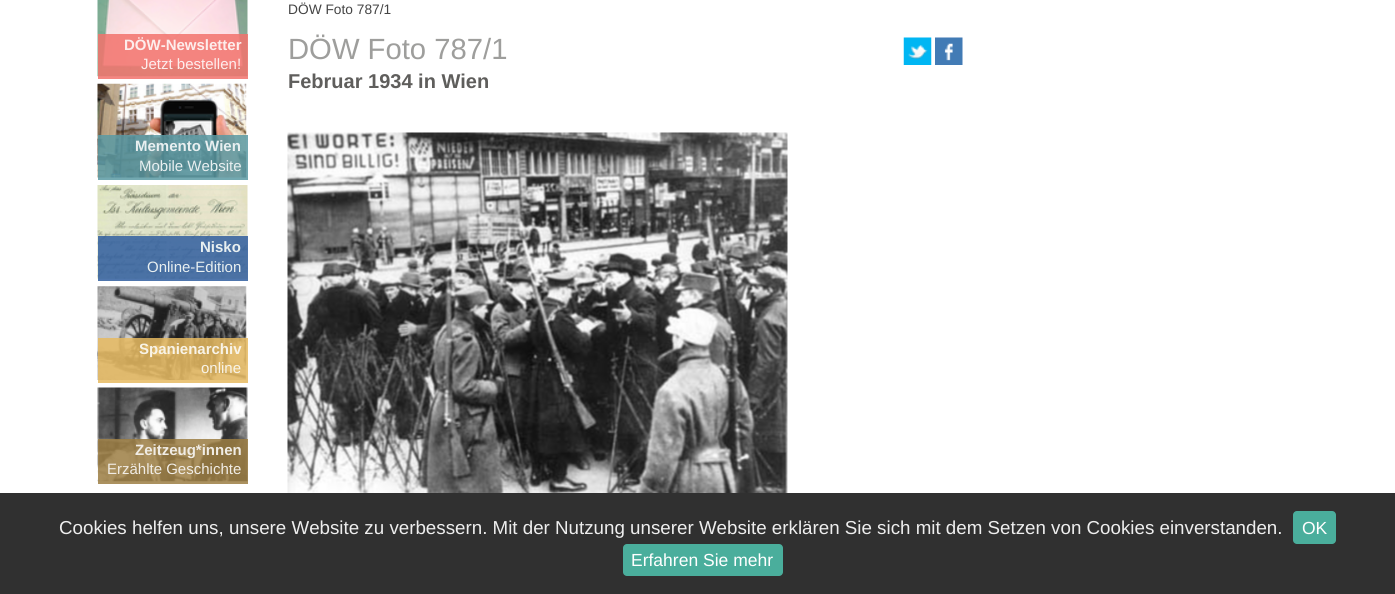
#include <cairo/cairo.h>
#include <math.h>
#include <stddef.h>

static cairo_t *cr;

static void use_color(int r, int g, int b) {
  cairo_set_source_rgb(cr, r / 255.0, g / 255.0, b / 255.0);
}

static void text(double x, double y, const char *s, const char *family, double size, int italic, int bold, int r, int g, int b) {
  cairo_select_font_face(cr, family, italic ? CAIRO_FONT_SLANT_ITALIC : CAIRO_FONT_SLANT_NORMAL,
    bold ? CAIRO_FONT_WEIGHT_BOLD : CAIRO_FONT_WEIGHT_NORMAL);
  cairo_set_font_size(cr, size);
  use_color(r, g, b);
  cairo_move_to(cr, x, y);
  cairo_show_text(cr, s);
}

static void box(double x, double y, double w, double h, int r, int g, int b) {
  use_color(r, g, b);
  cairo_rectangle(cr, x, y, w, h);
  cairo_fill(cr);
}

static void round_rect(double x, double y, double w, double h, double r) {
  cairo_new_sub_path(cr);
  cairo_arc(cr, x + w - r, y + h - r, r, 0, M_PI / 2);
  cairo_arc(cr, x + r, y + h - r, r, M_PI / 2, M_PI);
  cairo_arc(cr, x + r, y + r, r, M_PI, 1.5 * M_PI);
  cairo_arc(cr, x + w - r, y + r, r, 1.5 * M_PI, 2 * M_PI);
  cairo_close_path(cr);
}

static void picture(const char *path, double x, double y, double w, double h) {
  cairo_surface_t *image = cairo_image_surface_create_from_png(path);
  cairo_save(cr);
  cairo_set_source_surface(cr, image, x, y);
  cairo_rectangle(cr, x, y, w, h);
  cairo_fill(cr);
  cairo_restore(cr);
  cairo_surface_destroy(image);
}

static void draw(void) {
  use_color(255, 255, 255);
  cairo_paint(cr);
  picture("img_01.png", 97, 0, 151, 77);
  cairo_set_source_rgba(cr, 0.949, 0.447, 0.427, 0.85);
  cairo_rectangle(cr, 98, 34, 150, 45);
  cairo_fill(cr);
  picture("img_02.png", 97, 83, 150, 95);
  cairo_set_source_rgba(cr, 0.357, 0.604, 0.639, 0.85);
  cairo_rectangle(cr, 98, 135, 150, 45);
  cairo_fill(cr);
  picture("img_03.png", 97, 185, 151, 94);
  cairo_set_source_rgba(cr, 0.192, 0.369, 0.624, 0.85);
  cairo_rectangle(cr, 98, 236, 150, 45);
  cairo_fill(cr);
  picture("img_04.png", 97, 286, 150, 94);
  cairo_set_source_rgba(cr, 0.902, 0.729, 0.38, 0.85);
  cairo_rectangle(cr, 98, 338, 150, 45);
  cairo_fill(cr);
  picture("img_05.png", 97, 387, 151, 95);
  cairo_set_source_rgba(cr, 0.612, 0.494, 0.263, 0.85);
  cairo_rectangle(cr, 98, 439, 150, 45);
  cairo_fill(cr);
  picture("img_06.png", 903, 37, 29, 28);
  picture("img_07.png", 935, 37, 28, 28);
  picture("img_08.png", 287, 132, 501, 361);
  box(0, 493, 1395, 101, 48, 48, 48);
  use_color(74, 174, 156);
  round_rect(1293, 511, 43, 33, 4);
  cairo_fill(cr);
  round_rect(623, 544, 160, 32, 4);
  cairo_fill(cr);
  text(124, 50, "DÖW-Newsletter", "Liberation Sans", 15, 0, 1, 253, 237, 236);
  text(141, 69, "Jetzt bestellen!", "Liberation Sans", 15, 0, 0, 253, 237, 236);
  text(135, 151, "Memento Wien", "Liberation Sans", 15, 0, 1, 232, 239, 240);
  text(139, 171, "Mobile Website", "Liberation Sans", 15, 0, 0, 232, 239, 240);
  text(200, 252, "Nisko", "Liberation Sans", 15, 0, 1, 232, 239, 240);
  text(147, 272, "Online-Edition", "Liberation Sans", 15, 0, 0, 232, 239, 240);
  text(139, 354, "Spanienarchiv", "Liberation Sans", 15, 0, 1, 248, 243, 231);
  text(201, 373, "online", "Liberation Sans", 15, 0, 0, 248, 243, 231);
  text(135, 455, "Zeitzeug*innen", "Liberation Sans", 15, 0, 1, 240, 236, 229);
  text(107, 474, "Erzählte Geschichte", "Liberation Sans", 15, 0, 0, 240, 236, 229);
  text(288, 14, "DÖW Foto 787/1", "Liberation Sans", 13.75, 0, 0, 68, 68, 68);
  text(288, 59, "DÖW Foto 787/1", "Liberation Sans", 29.25, 0, 0, 158, 158, 156);
  text(288, 88, "Februar 1934 in Wien", "Liberation Sans", 20, 0, 1, 95, 94, 92);
  text(59, 534, "Cookies helfen uns, unsere Website zu verbessern. Mit der Nutzung unserer Website erklären Sie sich mit dem Setzen von Cookies einverstanden.", "Liberation Sans", 18.75, 0, 0, 238, 238, 238);
  text(1302, 534, "OK", "Liberation Sans", 17.5, 0, 0, 255, 255, 255);
  text(631, 566, "Erfahren Sie mehr", "Liberation Sans", 17.5, 0, 0, 255, 255, 255);
}

int main(void) {
  cairo_surface_t *surface = cairo_image_surface_create(CAIRO_FORMAT_RGB24, 1395, 594);
  cr = cairo_create(surface);
  cairo_font_options_t *options = cairo_font_options_create();
  cairo_font_options_set_hint_metrics(options, CAIRO_HINT_METRICS_OFF);
  cairo_font_options_set_hint_style(options, CAIRO_HINT_STYLE_NONE);
  cairo_set_font_options(cr, options);
  cairo_set_miter_limit(cr, 4);
  draw();
  cairo_surface_write_to_png(surface, "out.png");
  cairo_font_options_destroy(options);
  cairo_destroy(cr);
  cairo_surface_destroy(surface);
  return 0;
}
